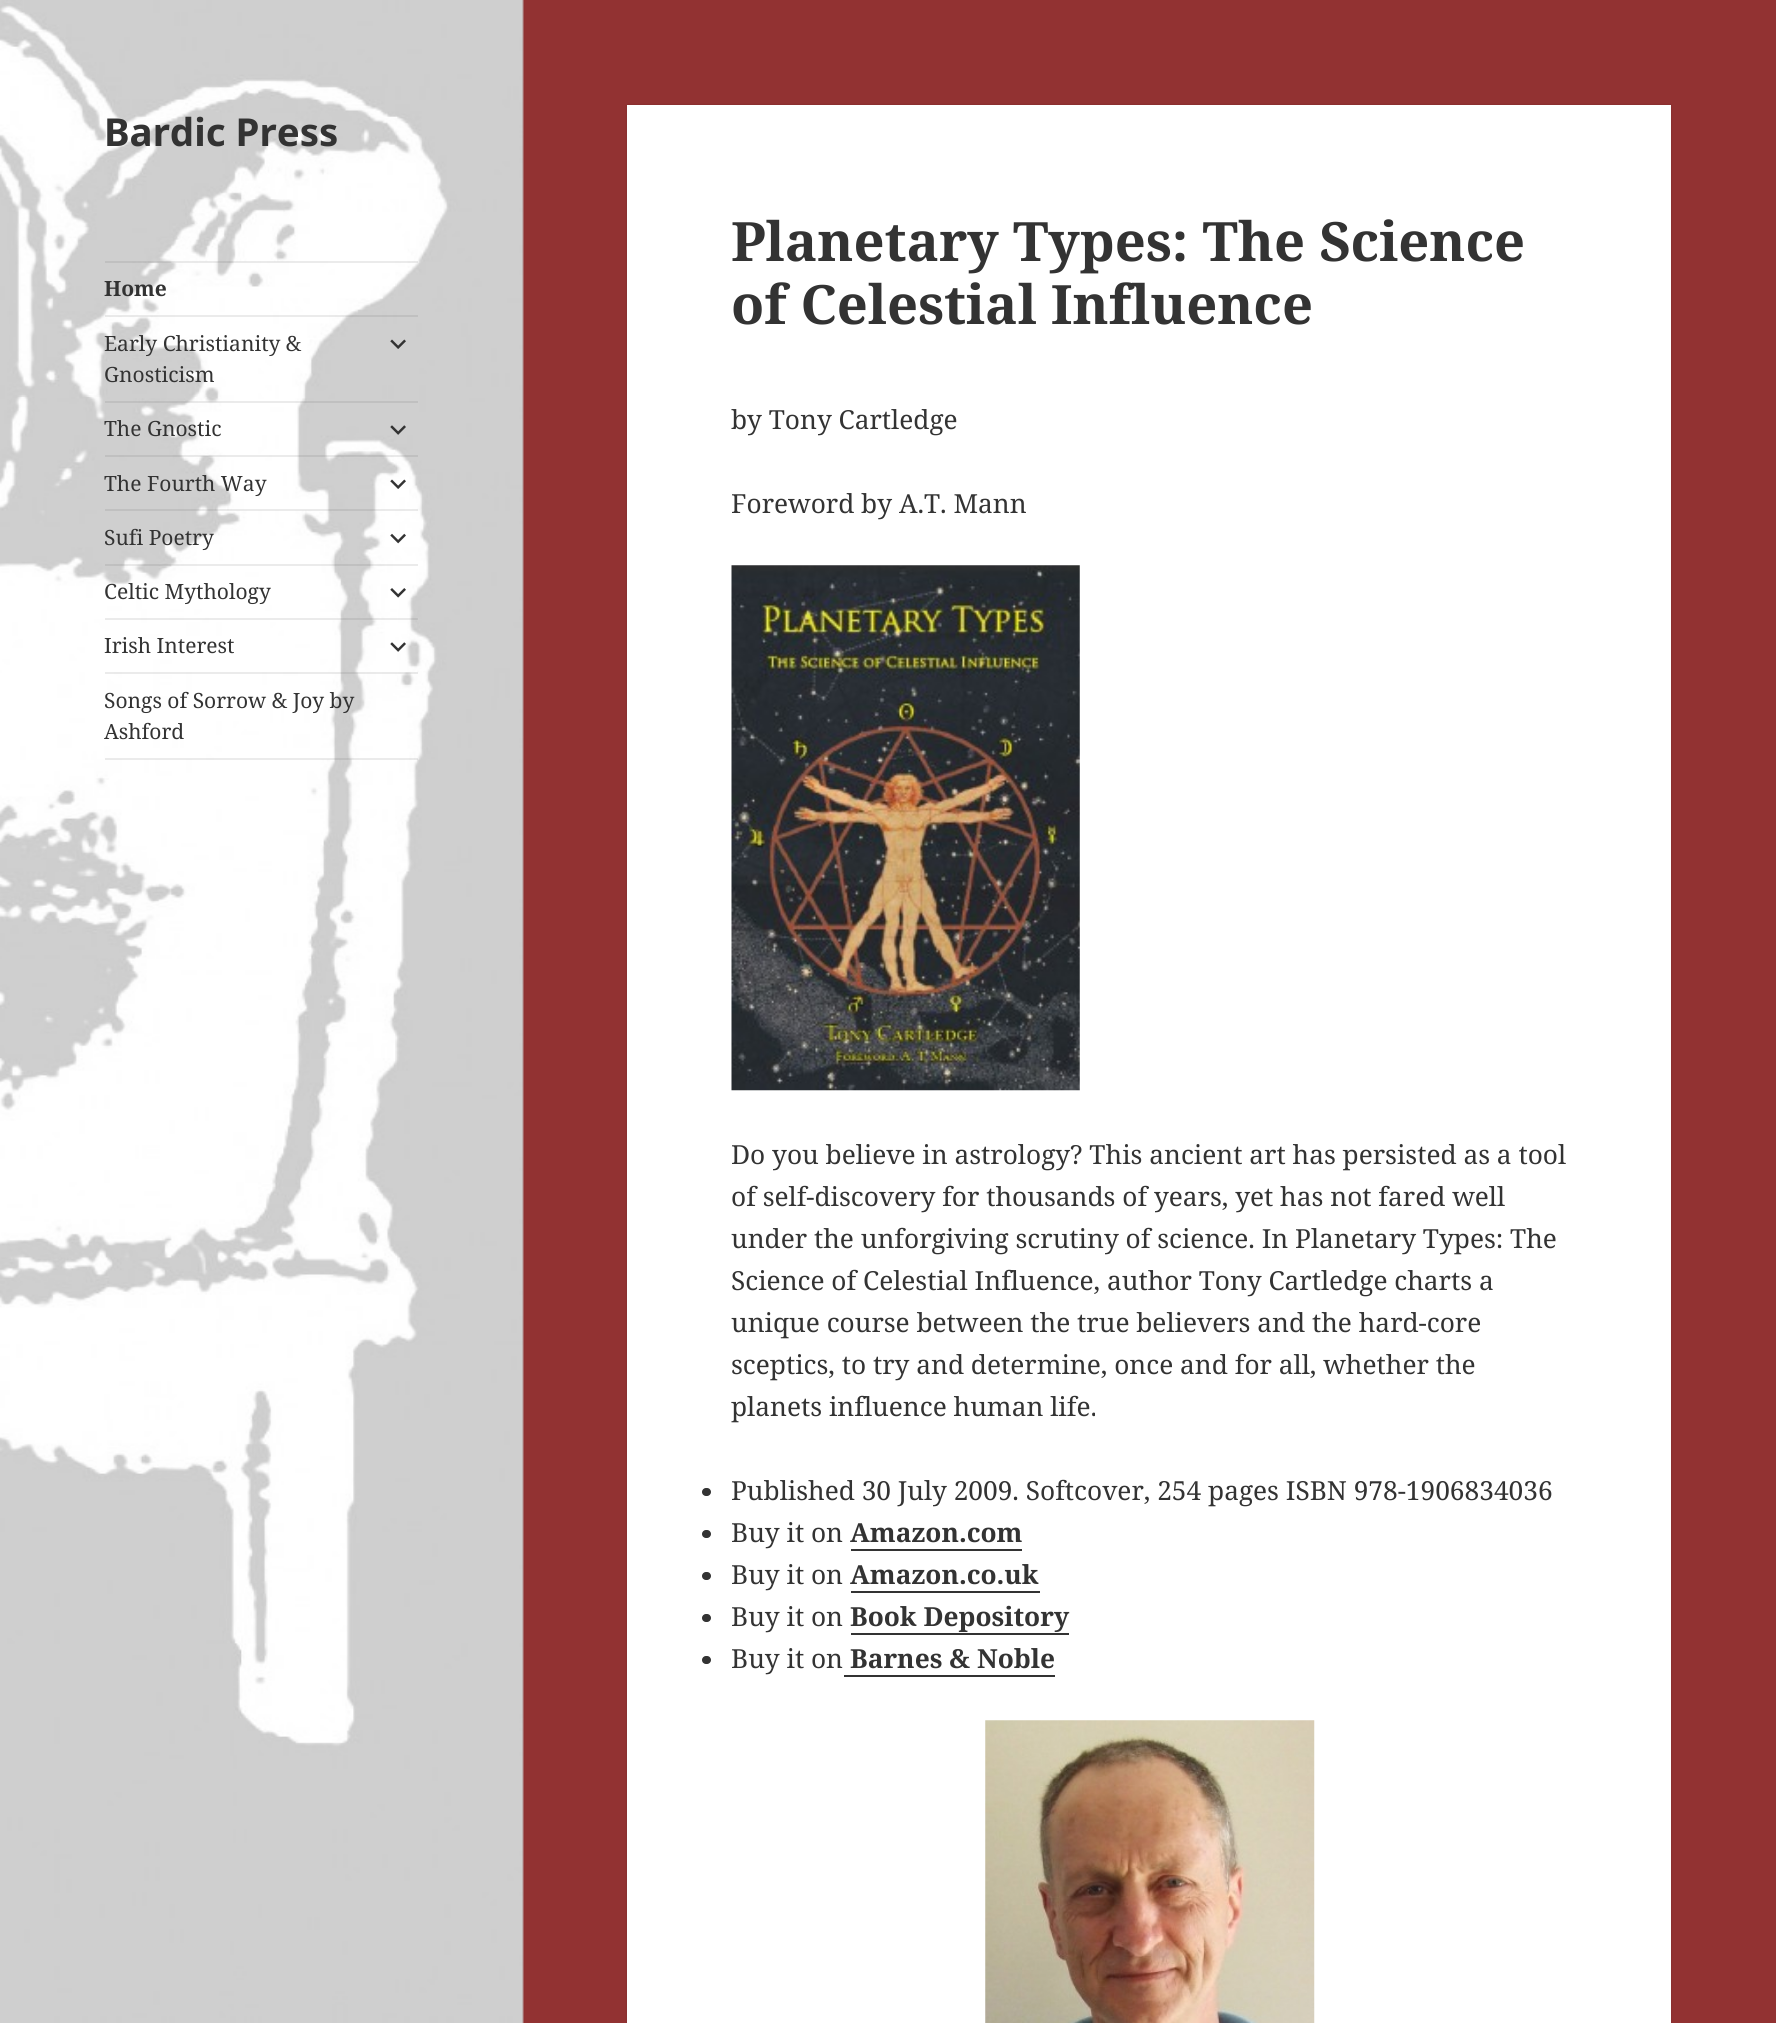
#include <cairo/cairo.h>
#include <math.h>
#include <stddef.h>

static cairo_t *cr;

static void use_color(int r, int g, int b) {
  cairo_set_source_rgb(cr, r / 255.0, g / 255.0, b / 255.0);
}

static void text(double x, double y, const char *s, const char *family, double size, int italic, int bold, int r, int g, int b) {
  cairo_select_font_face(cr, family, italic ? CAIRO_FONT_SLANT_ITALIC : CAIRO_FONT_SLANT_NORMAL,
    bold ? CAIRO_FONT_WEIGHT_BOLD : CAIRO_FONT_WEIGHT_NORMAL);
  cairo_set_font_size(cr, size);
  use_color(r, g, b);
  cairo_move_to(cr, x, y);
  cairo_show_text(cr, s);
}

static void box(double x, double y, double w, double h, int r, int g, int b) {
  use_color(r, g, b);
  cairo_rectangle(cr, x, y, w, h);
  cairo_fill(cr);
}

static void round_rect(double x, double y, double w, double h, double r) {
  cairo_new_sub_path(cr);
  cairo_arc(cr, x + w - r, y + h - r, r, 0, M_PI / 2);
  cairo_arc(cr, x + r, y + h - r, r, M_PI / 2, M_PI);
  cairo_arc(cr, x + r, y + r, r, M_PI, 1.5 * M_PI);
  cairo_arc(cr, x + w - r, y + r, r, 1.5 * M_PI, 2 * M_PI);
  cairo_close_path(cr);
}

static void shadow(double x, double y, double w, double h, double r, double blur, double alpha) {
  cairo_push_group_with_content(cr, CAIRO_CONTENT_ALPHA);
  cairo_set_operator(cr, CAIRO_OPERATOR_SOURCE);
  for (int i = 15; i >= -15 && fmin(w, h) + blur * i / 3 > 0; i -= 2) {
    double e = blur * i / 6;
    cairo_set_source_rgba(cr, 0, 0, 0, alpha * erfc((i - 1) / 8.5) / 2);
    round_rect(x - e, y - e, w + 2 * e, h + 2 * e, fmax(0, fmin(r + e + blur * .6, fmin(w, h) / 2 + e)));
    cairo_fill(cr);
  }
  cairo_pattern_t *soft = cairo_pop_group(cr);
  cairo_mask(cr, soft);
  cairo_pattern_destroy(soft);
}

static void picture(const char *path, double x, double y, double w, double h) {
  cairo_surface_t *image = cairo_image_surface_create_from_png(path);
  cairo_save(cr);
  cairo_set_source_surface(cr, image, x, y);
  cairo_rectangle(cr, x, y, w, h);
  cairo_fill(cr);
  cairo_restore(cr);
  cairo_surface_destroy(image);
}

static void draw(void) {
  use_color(146, 50, 50);
  cairo_paint(cr);
  use_color(0, 0, 0);
  shadow(0, 0, 523, 2023, 0, 1, 0.15);
  picture("img_01.png", 0, 0, 524, 2023);
  cairo_set_source_rgba(cr, 0.2, 0.2, 0.2, 0.1);
  cairo_rectangle(cr, 105, 261, 313, 2);
  cairo_fill(cr);
  cairo_rectangle(cr, 105, 758, 313, 2);
  cairo_fill(cr);
  cairo_rectangle(cr, 105, 315, 313, 2);
  cairo_fill(cr);
  picture("img_02.png", 390, 339, 16, 10);
  cairo_rectangle(cr, 105, 401, 313, 2);
  cairo_fill(cr);
  picture("img_03.png", 390, 425, 16, 10);
  cairo_rectangle(cr, 105, 455, 313, 2);
  cairo_fill(cr);
  picture("img_04.png", 390, 479, 16, 10);
  cairo_rectangle(cr, 105, 509, 313, 2);
  cairo_fill(cr);
  picture("img_05.png", 390, 533, 16, 11);
  cairo_rectangle(cr, 105, 564, 313, 2);
  cairo_fill(cr);
  picture("img_06.png", 390, 588, 16, 10);
  cairo_rectangle(cr, 105, 618, 313, 2);
  cairo_fill(cr);
  picture("img_07.png", 390, 642, 16, 10);
  cairo_rectangle(cr, 105, 672, 313, 2);
  cairo_fill(cr);
  use_color(0, 0, 0);
  shadow(627, 105, 1044, 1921, 0, 1, 0.15);
  box(627, 105, 1044, 1918, 255, 255, 255);
  picture("img_08.png", 731, 565, 349, 526);
  use_color(51, 51, 51);
  round_rect(702, 1488, 9, 8, 4);
  cairo_fill(cr);
  round_rect(702, 1530, 9, 8, 4);
  cairo_fill(cr);
  box(851, 1549, 171, 2, 51, 51, 51);
  round_rect(702, 1572, 9, 8, 4);
  cairo_fill(cr);
  box(851, 1591, 189, 2, 51, 51, 51);
  round_rect(702, 1614, 9, 8, 4);
  cairo_fill(cr);
  box(851, 1633, 218, 2, 51, 51, 51);
  round_rect(702, 1656, 9, 8, 4);
  cairo_fill(cr);
  box(844, 1675, 211, 2, 51, 51, 51);
  picture("img_09.png", 985, 1720, 330, 303);
  text(104, 146, "Bardic Press", "Noto Sans", 38.5, 0, 1, 51, 51, 51);
  text(104, 296, "Home", "Noto Serif", 21, 0, 1, 51, 51, 51);
  text(104, 351, "Early Christianity &", "Noto Serif", 21, 0, 0, 51, 51, 51);
  text(104, 382, "Gnosticism", "Noto Serif", 21, 0, 0, 51, 51, 51);
  text(104, 436, "The Gnostic", "Noto Serif", 21, 0, 0, 51, 51, 51);
  text(104, 491, "The Fourth Way", "Noto Serif", 21, 0, 0, 51, 51, 51);
  text(104, 545, "Sufi Poetry", "Noto Serif", 21, 0, 0, 51, 51, 51);
  text(104, 599, "Celtic Mythology", "Noto Serif", 21, 0, 0, 51, 51, 51);
  text(104, 653, "Irish Interest", "Noto Serif", 21, 0, 0, 51, 51, 51);
  text(104, 708, "Songs of Sorrow & Joy by", "Noto Serif", 21, 0, 0, 51, 51, 51);
  text(104, 739, "Ashford", "Noto Serif", 21, 0, 0, 51, 51, 51);
  text(731, 261, "Planetary Types: The Science", "Noto Serif", 54.25, 0, 1, 51, 51, 51);
  text(731, 324, "of Celestial Influence", "Noto Serif", 54.25, 0, 1, 51, 51, 51);
  text(731, 429, "by Tony Cartledge", "Noto Serif", 26.25, 0, 0, 51, 51, 51);
  text(731, 513, "Foreword by A.T. Mann", "Noto Serif", 26.25, 0, 0, 51, 51, 51);
  text(731, 1164, "Do you believe in astrology? This ancient art has persisted as a tool", "Noto Serif", 26.25, 0, 0, 51, 51, 51);
  text(731, 1206, "of self-discovery for thousands of years, yet has not fared well", "Noto Serif", 26.25, 0, 0, 51, 51, 51);
  text(731, 1248, "under the unforgiving scrutiny of science. In Planetary Types: The", "Noto Serif", 26.25, 0, 0, 51, 51, 51);
  text(731, 1290, "Science of Celestial Influence, author Tony Cartledge charts a", "Noto Serif", 26.25, 0, 0, 51, 51, 51);
  text(731, 1332, "unique course between the true believers and the hard-core", "Noto Serif", 26.25, 0, 0, 51, 51, 51);
  text(731, 1374, "sceptics, to try and determine, once and for all, whether the", "Noto Serif", 26.25, 0, 0, 51, 51, 51);
  text(731, 1416, "planets influence human life.", "Noto Serif", 26.25, 0, 0, 51, 51, 51);
  text(731, 1500, "Published 30 July 2009. Softcover, 254 pages ISBN 978-1906834036", "Noto Serif", 26.25, 0, 0, 51, 51, 51);
  text(731, 1542, "Buy it on", "Noto Serif", 26.25, 0, 0, 51, 51, 51);
  text(850, 1542, "Amazon.com", "Noto Serif", 26.25, 0, 1, 51, 51, 51);
  text(731, 1584, "Buy it on", "Noto Serif", 26.25, 0, 0, 51, 51, 51);
  text(850, 1584, "Amazon.co.uk", "Noto Serif", 26.25, 0, 1, 51, 51, 51);
  text(731, 1626, "Buy it on", "Noto Serif", 26.25, 0, 0, 51, 51, 51);
  text(850, 1626, "Book Depository", "Noto Serif", 26.25, 0, 1, 51, 51, 51);
  text(731, 1668, "Buy it on", "Noto Serif", 26.25, 0, 0, 51, 51, 51);
  text(850, 1668, "Barnes & Noble", "Noto Serif", 26.25, 0, 1, 51, 51, 51);
}

int main(void) {
  cairo_surface_t *surface = cairo_image_surface_create(CAIRO_FORMAT_RGB24, 1776, 2023);
  cr = cairo_create(surface);
  cairo_font_options_t *options = cairo_font_options_create();
  cairo_font_options_set_hint_metrics(options, CAIRO_HINT_METRICS_OFF);
  cairo_font_options_set_hint_style(options, CAIRO_HINT_STYLE_NONE);
  cairo_set_font_options(cr, options);
  cairo_set_miter_limit(cr, 4);
  draw();
  cairo_surface_write_to_png(surface, "out.png");
  cairo_font_options_destroy(options);
  cairo_destroy(cr);
  cairo_surface_destroy(surface);
  return 0;
}
